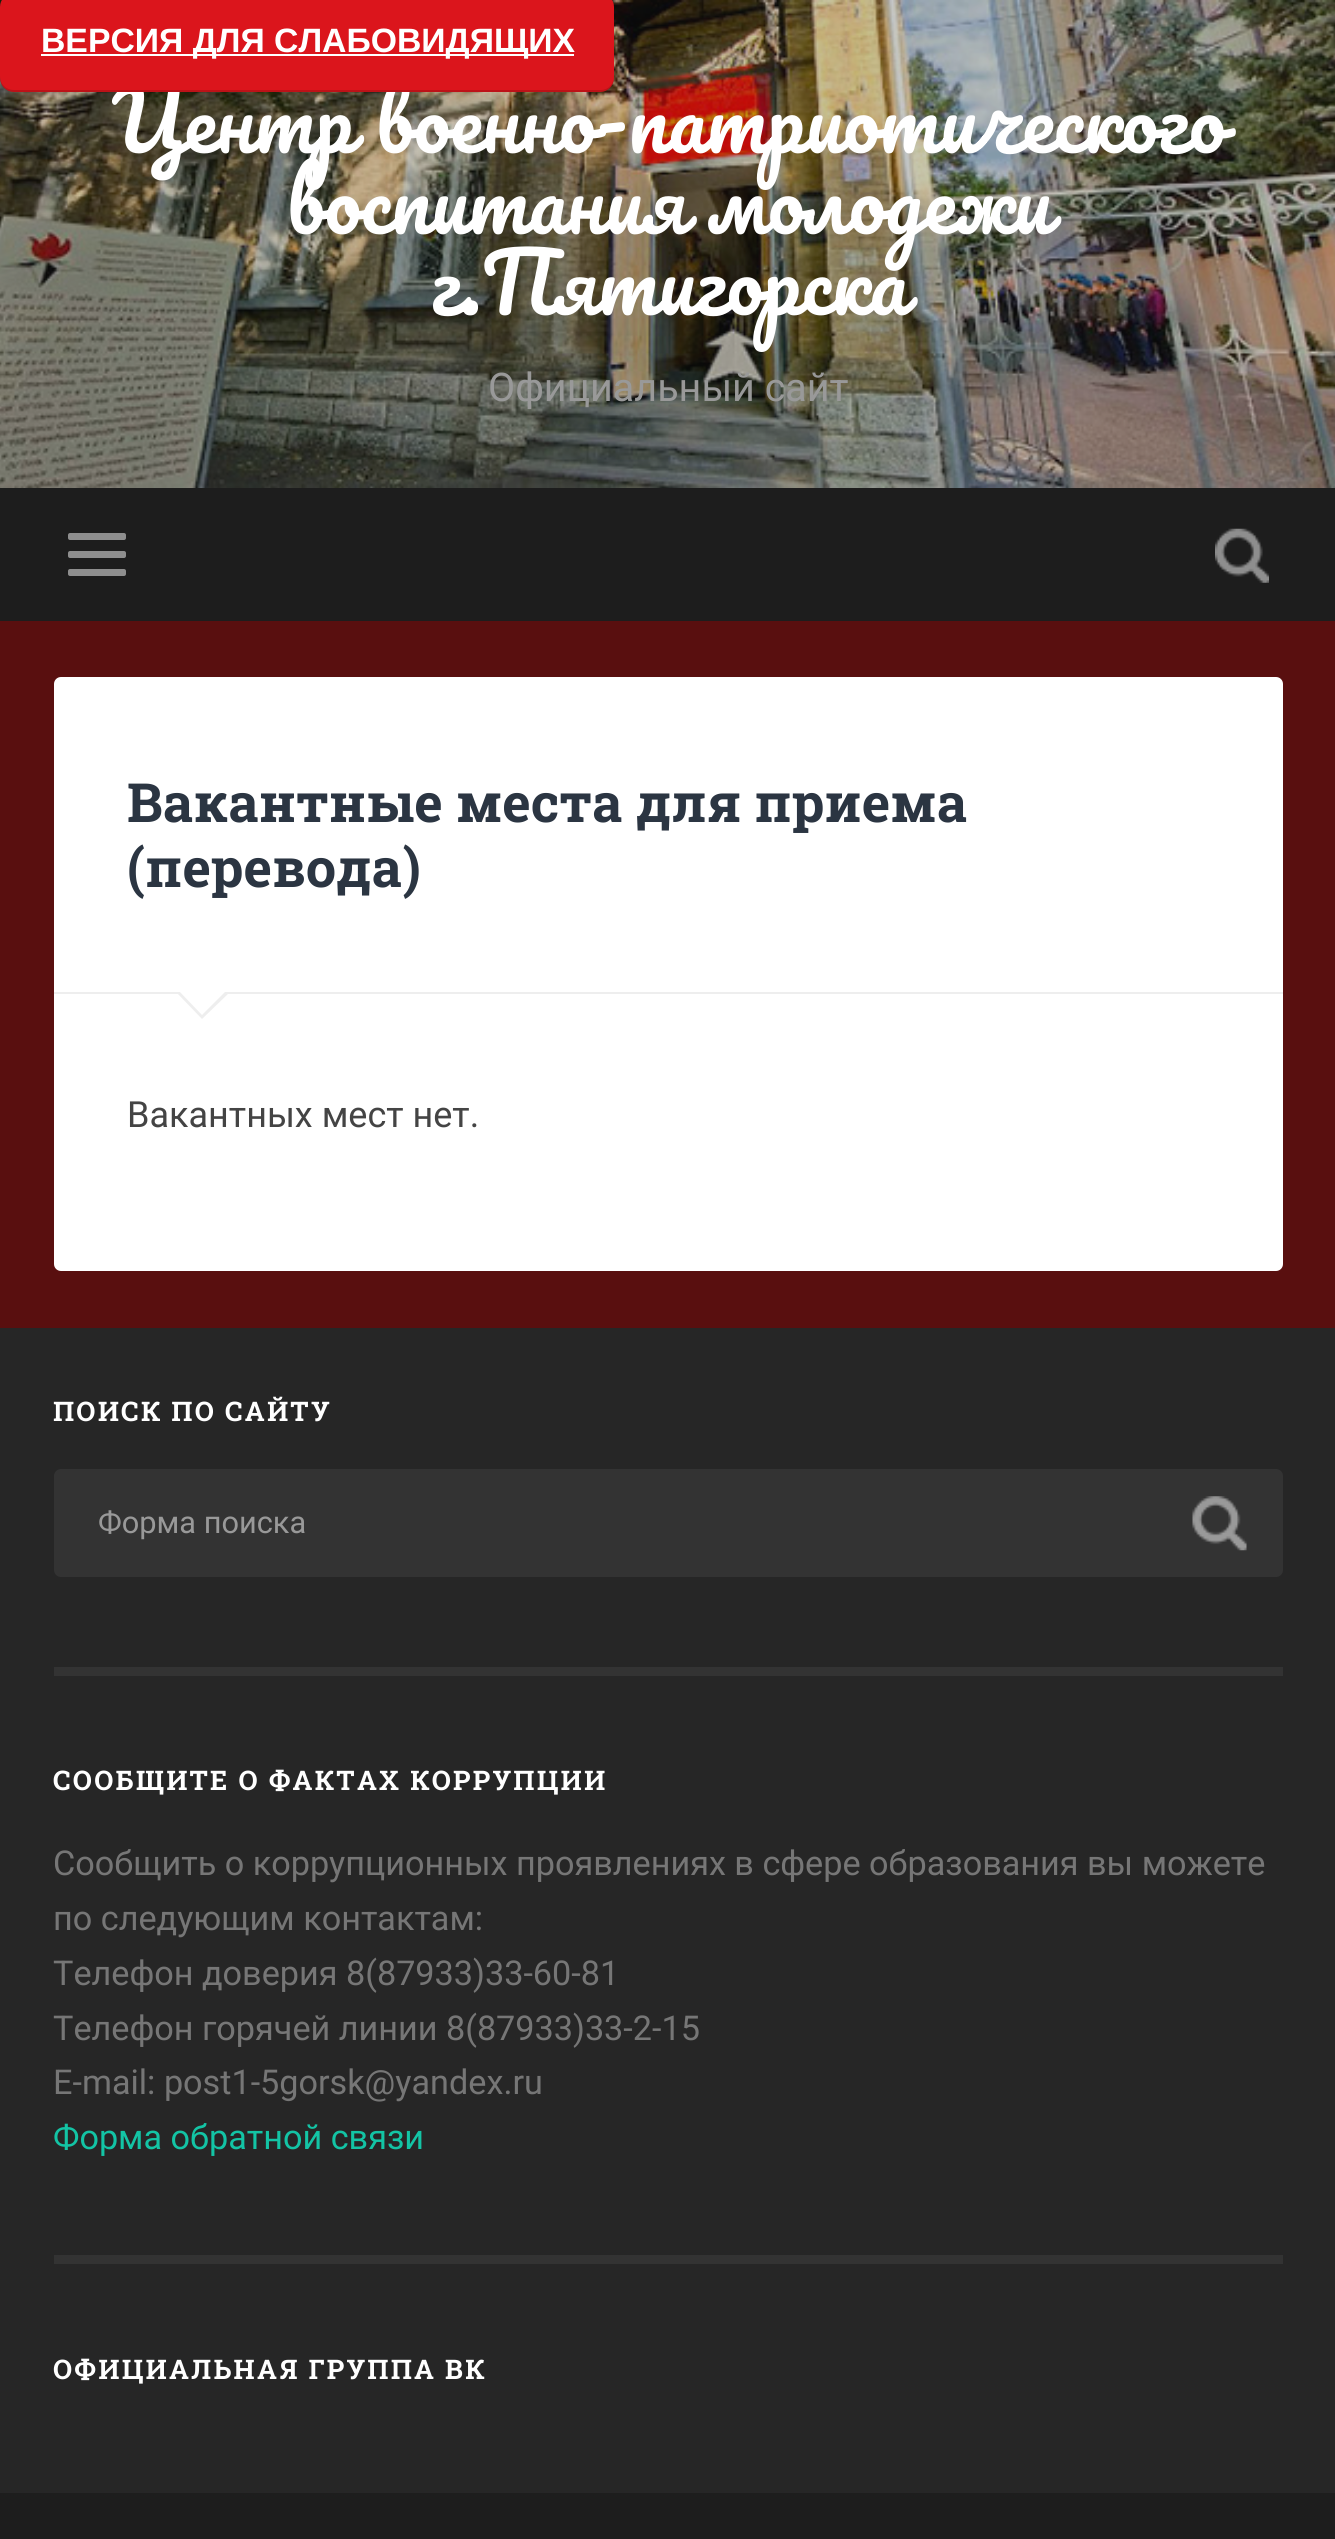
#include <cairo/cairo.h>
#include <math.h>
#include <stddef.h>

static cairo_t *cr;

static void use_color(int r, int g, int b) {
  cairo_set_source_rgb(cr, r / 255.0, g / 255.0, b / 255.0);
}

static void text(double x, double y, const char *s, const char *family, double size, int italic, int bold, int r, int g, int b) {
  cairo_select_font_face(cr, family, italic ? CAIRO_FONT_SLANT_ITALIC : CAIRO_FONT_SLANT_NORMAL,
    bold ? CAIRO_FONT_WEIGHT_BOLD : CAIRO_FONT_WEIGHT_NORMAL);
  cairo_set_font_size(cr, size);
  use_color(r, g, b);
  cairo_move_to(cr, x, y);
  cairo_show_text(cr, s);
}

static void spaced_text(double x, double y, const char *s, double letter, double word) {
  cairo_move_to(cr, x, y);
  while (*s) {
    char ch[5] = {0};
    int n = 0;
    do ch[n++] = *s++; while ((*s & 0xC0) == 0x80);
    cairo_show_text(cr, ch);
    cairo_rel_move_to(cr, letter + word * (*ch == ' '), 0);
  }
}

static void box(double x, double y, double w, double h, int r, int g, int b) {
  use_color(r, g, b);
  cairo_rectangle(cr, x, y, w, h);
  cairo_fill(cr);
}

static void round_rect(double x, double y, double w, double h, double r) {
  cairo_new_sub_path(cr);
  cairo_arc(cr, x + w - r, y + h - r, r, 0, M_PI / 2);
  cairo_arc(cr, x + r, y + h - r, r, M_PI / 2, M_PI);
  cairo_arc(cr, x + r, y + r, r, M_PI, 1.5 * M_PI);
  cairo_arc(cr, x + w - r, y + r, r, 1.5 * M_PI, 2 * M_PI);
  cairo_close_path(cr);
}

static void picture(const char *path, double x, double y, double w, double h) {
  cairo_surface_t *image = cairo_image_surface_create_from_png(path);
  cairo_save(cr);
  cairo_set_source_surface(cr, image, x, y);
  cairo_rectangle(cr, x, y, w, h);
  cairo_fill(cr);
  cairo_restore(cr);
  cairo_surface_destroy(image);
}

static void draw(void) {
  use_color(89, 15, 15);
  cairo_paint(cr);
  picture("img_01.png", 0, 0, 1335, 488);
  box(0, 488, 1335, 133, 29, 29, 29);
  use_color(142, 142, 142);
  round_rect(68, 533, 58, 7, 2);
  cairo_fill(cr);
  round_rect(68, 551, 58, 7, 2);
  cairo_fill(cr);
  round_rect(68, 569, 58, 7, 2);
  cairo_fill(cr);
  picture("img_02.png", 1215, 528, 54, 55);
  use_color(255, 255, 255);
  round_rect(54, 677, 1229, 594, 7);
  cairo_fill(cr);
  box(54, 992, 1229, 2, 238, 238, 238);
  cairo_new_path(cr);
  cairo_move_to(cr, 176, 992);
  cairo_line_to(cr, 230, 992);
  cairo_line_to(cr, 202, 1019);
  cairo_close_path(cr);
  cairo_fill(cr);
  use_color(255, 255, 255);
  cairo_new_path(cr);
  cairo_move_to(cr, 178, 990);
  cairo_line_to(cr, 227, 990);
  cairo_line_to(cr, 202, 1015);
  cairo_close_path(cr);
  cairo_fill(cr);
  box(0, 1328, 1335, 1165, 38, 38, 38);
  use_color(51, 51, 51);
  round_rect(54, 1469, 1229, 108, 7);
  cairo_fill(cr);
  picture("img_03.png", 1192, 1496, 55, 55);
  box(54, 1667, 1229, 9, 51, 51, 51);
  box(54, 2255, 1229, 9, 51, 51, 51);
  box(0, 2493, 1335, 46, 29, 29, 29);
  text(112, 153, "Центр военно-патриотического", "Pacifico", 81, 0, 0, 255, 255, 255);
  use_color(219, 21, 28);
  round_rect(0, -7, 614, 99, 14);
  cairo_fill(cr);
  box(41, 54, 533, 2, 255, 255, 255);
  text(41, 52, "ВЕРСИЯ ДЛЯ СЛАБОВИДЯЩИХ", "Liberation Sans", 33.75, 0, 1, 255, 255, 255);
  cairo_set_source_rgba(cr, 0, 0, 0, 0.14);
  cairo_new_path(cr);
  cairo_move_to(cr, 0, 76);
  cairo_line_to(cr, 0, 78);
  cairo_curve_to(cr, 0, 86, 6, 92, 14, 92);
  cairo_line_to(cr, 600, 92);
  cairo_curve_to(cr, 608, 92, 614, 86, 614, 78);
  cairo_line_to(cr, 614, 76);
  cairo_curve_to(cr, 614, 84, 608, 90, 601, 90);
  cairo_line_to(cr, 14, 90);
  cairo_curve_to(cr, 6, 90, 0, 84, 0, 76);
  cairo_close_path(cr);
  cairo_fill(cr);
  text(286, 234, "воспитания молодежи", "Pacifico", 81, 0, 0, 255, 255, 255);
  text(430, 315, "г.Пятигорска", "Pacifico", 81, 0, 0, 255, 255, 255);
  text(488, 401, "Официальный сайт", "Roboto", 39.5, 0, 0, 153, 153, 153);
  text(127, 822, "Вакантные места для приема", "Roboto Slab", 54, 0, 1, 43, 53, 66);
  text(127, 887, "(перевода)", "Roboto Slab", 54, 0, 1, 43, 53, 66);
  text(127, 1127, "Вакантных мест нет.", "Roboto", 36, 0, 0, 68, 68, 68);
  cairo_select_font_face(cr, "Roboto Slab", CAIRO_FONT_SLANT_NORMAL, CAIRO_FONT_WEIGHT_BOLD);
  cairo_set_font_size(cr, 27);
  use_color(255, 255, 255);
  spaced_text(53, 1421, "ПОИСК ПО САЙТУ", 2.25, 0);
  text(98, 1533, "Форма поиска", "Roboto", 30.75, 0, 0, 153, 153, 153);
  cairo_select_font_face(cr, "Roboto Slab", CAIRO_FONT_SLANT_NORMAL, CAIRO_FONT_WEIGHT_BOLD);
  cairo_set_font_size(cr, 27);
  use_color(255, 255, 255);
  spaced_text(53, 1790, "СООБЩИТЕ О ФАКТАХ КОРРУПЦИИ", 2.25, 0);
  text(53, 1875, "Сообщить о коррупционных проявлениях в сфере образования вы можете", "Roboto", 34.2, 0, 0, 118, 118, 118);
  text(53, 1930, "по следующим контактам:", "Roboto", 34.2, 0, 0, 118, 118, 118);
  text(53, 1985, "Телефон доверия 8(87933)33-60-81", "Roboto", 34.2, 0, 0, 118, 118, 118);
  text(53, 2040, "Телефон горячей линии 8(87933)33-2-15", "Roboto", 34.2, 0, 0, 118, 118, 118);
  text(53, 2094, "E-mail: post1-5gorsk@yandex.ru", "Roboto", 34.2, 0, 0, 118, 118, 118);
  text(53, 2149, "Форма обратной связи", "Roboto", 34.2, 0, 0, 19, 196, 165);
  cairo_select_font_face(cr, "Roboto Slab", CAIRO_FONT_SLANT_NORMAL, CAIRO_FONT_WEIGHT_BOLD);
  cairo_set_font_size(cr, 27);
  use_color(255, 255, 255);
  spaced_text(53, 2379, "ОФИЦИАЛЬНАЯ ГРУППА ВК", 2.25, 0);
}

int main(void) {
  cairo_surface_t *surface = cairo_image_surface_create(CAIRO_FORMAT_RGB24, 1335, 2539);
  cr = cairo_create(surface);
  cairo_font_options_t *options = cairo_font_options_create();
  cairo_font_options_set_hint_metrics(options, CAIRO_HINT_METRICS_OFF);
  cairo_font_options_set_hint_style(options, CAIRO_HINT_STYLE_NONE);
  cairo_set_font_options(cr, options);
  cairo_set_miter_limit(cr, 4);
  draw();
  cairo_surface_write_to_png(surface, "out.png");
  cairo_font_options_destroy(options);
  cairo_destroy(cr);
  cairo_surface_destroy(surface);
  return 0;
}
